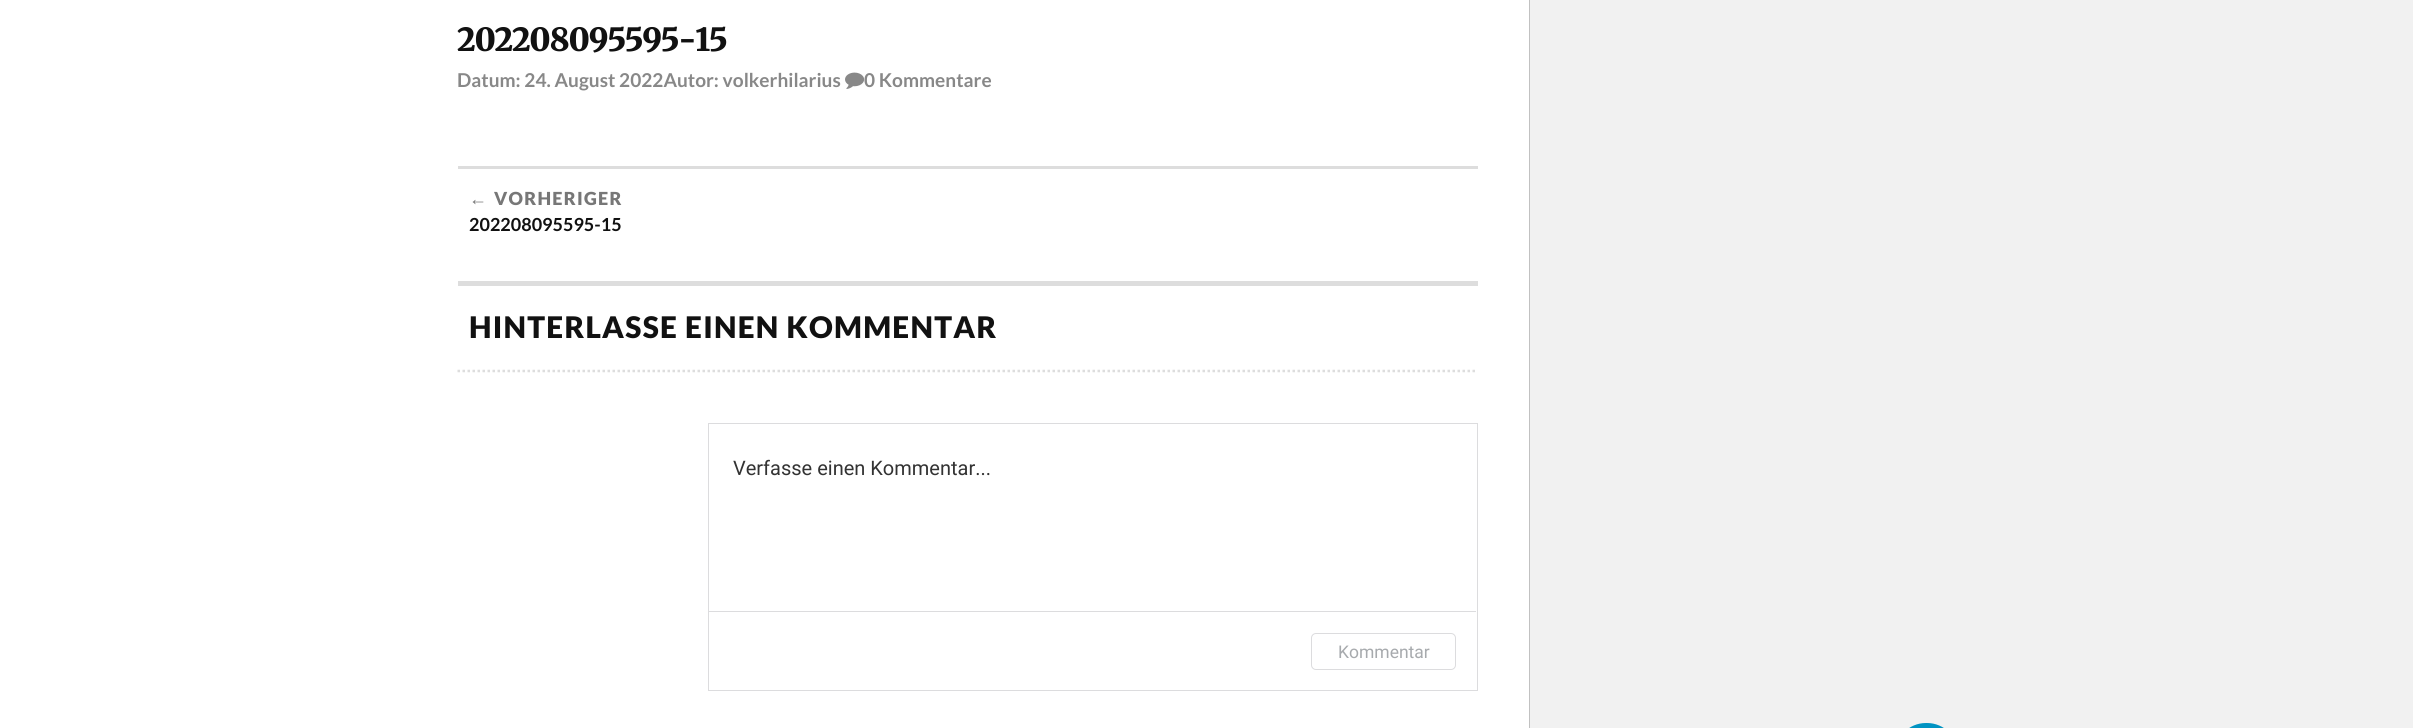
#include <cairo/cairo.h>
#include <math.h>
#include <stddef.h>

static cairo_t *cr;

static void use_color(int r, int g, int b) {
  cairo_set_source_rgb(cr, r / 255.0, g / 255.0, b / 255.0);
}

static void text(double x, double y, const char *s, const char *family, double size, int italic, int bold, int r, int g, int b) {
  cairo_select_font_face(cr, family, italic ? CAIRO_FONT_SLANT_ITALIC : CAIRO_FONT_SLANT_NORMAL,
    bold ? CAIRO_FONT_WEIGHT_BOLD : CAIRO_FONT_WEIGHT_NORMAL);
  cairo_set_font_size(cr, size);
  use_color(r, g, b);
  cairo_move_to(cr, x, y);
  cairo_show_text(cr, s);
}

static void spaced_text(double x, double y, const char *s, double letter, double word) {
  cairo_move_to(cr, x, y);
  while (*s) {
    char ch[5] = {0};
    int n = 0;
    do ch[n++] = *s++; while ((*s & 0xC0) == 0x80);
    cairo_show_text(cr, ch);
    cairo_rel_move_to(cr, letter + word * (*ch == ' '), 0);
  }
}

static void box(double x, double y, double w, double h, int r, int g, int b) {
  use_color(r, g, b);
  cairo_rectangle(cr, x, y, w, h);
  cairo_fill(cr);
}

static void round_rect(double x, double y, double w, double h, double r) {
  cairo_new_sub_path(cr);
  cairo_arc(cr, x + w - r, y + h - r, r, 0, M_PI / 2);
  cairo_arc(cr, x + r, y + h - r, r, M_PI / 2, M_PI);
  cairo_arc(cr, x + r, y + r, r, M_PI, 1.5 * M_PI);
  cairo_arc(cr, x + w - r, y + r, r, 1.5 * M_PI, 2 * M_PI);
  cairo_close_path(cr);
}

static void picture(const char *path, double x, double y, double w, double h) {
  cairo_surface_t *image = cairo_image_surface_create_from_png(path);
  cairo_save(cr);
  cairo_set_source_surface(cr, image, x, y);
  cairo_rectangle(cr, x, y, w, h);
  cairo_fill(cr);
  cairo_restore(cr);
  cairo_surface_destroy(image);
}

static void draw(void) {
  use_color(241, 241, 241);
  cairo_paint(cr);
  box(0, 0, 1529, 728, 255, 255, 255);
  box(458, 166, 1020, 3, 221, 221, 221);
  box(458, 281, 1020, 5, 221, 221, 221);
  cairo_new_path(cr);
  cairo_move_to(cr, 457.5, 371);
  cairo_line_to(cr, 1477.5, 371);
  cairo_set_line_width(cr, 2.5);
  cairo_set_dash(cr, (double[]){2.5, 2.5}, 2, 0);
  cairo_stroke(cr);
  cairo_rectangle(cr, 708.5, 423.5, 769, 267);
  use_color(220, 220, 222);
  cairo_set_line_width(cr, 1);
  cairo_set_dash(cr, NULL, 0, 0);
  cairo_stroke(cr);
  box(709, 611, 767, 1, 220, 220, 222);
  round_rect(1311.5, 633.5, 144, 36, 4.5);
  cairo_stroke(cr);
  box(1529, 0, 1, 728, 193, 193, 193);
  use_color(0, 147, 194);
  round_rect(1895, 723, 63, 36, 31);
  cairo_fill(cr);
  cairo_select_font_face(cr, "Merriweather Black", CAIRO_FONT_SLANT_NORMAL, CAIRO_FONT_WEIGHT_NORMAL);
  cairo_set_font_size(cr, 31.9);
  use_color(17, 17, 17);
  spaced_text(457, 51, "202208095595-15", -1.25, 0);
  text(457, 87, "Datum: 24. August 2022Autor: volkerhilarius", "Lato", 19.1, 0, 1, 136, 136, 136);
  text(864, 87, "0 Kommentare", "Lato", 19.1, 0, 1, 136, 136, 136);
  picture("img_01.png", 845, 72, 20, 17);
  cairo_select_font_face(cr, "Liberation Serif", CAIRO_FONT_SLANT_NORMAL, CAIRO_FONT_WEIGHT_BOLD);
  cairo_set_font_size(cr, 18);
  use_color(119, 119, 119);
  spaced_text(469, 205, "←", 1.25, 0);
  cairo_select_font_face(cr, "Lato Black", CAIRO_FONT_SLANT_NORMAL, CAIRO_FONT_WEIGHT_NORMAL);
  spaced_text(494, 205, "VORHERIGER", 1.25, 0);
  text(469, 231, "202208095595-15", "Lato", 18, 0, 1, 17, 17, 17);
  cairo_select_font_face(cr, "Lato Black", CAIRO_FONT_SLANT_NORMAL, CAIRO_FONT_WEIGHT_NORMAL);
  cairo_set_font_size(cr, 29.75);
  spaced_text(469, 338, "HINTERLASSE EINEN KOMMENTAR", 1.25, 0);
  text(733, 475, "Verfasse einen Kommentar...", "Roboto", 20, 0, 0, 51, 51, 51);
  text(1338, 658, "Kommentar", "Roboto", 17.5, 0, 0, 167, 170, 173);
}

int main(void) {
  cairo_surface_t *surface = cairo_image_surface_create(CAIRO_FORMAT_RGB24, 2413, 728);
  cr = cairo_create(surface);
  cairo_font_options_t *options = cairo_font_options_create();
  cairo_font_options_set_hint_metrics(options, CAIRO_HINT_METRICS_OFF);
  cairo_font_options_set_hint_style(options, CAIRO_HINT_STYLE_NONE);
  cairo_set_font_options(cr, options);
  cairo_set_miter_limit(cr, 4);
  draw();
  cairo_surface_write_to_png(surface, "out.png");
  cairo_font_options_destroy(options);
  cairo_destroy(cr);
  cairo_surface_destroy(surface);
  return 0;
}
